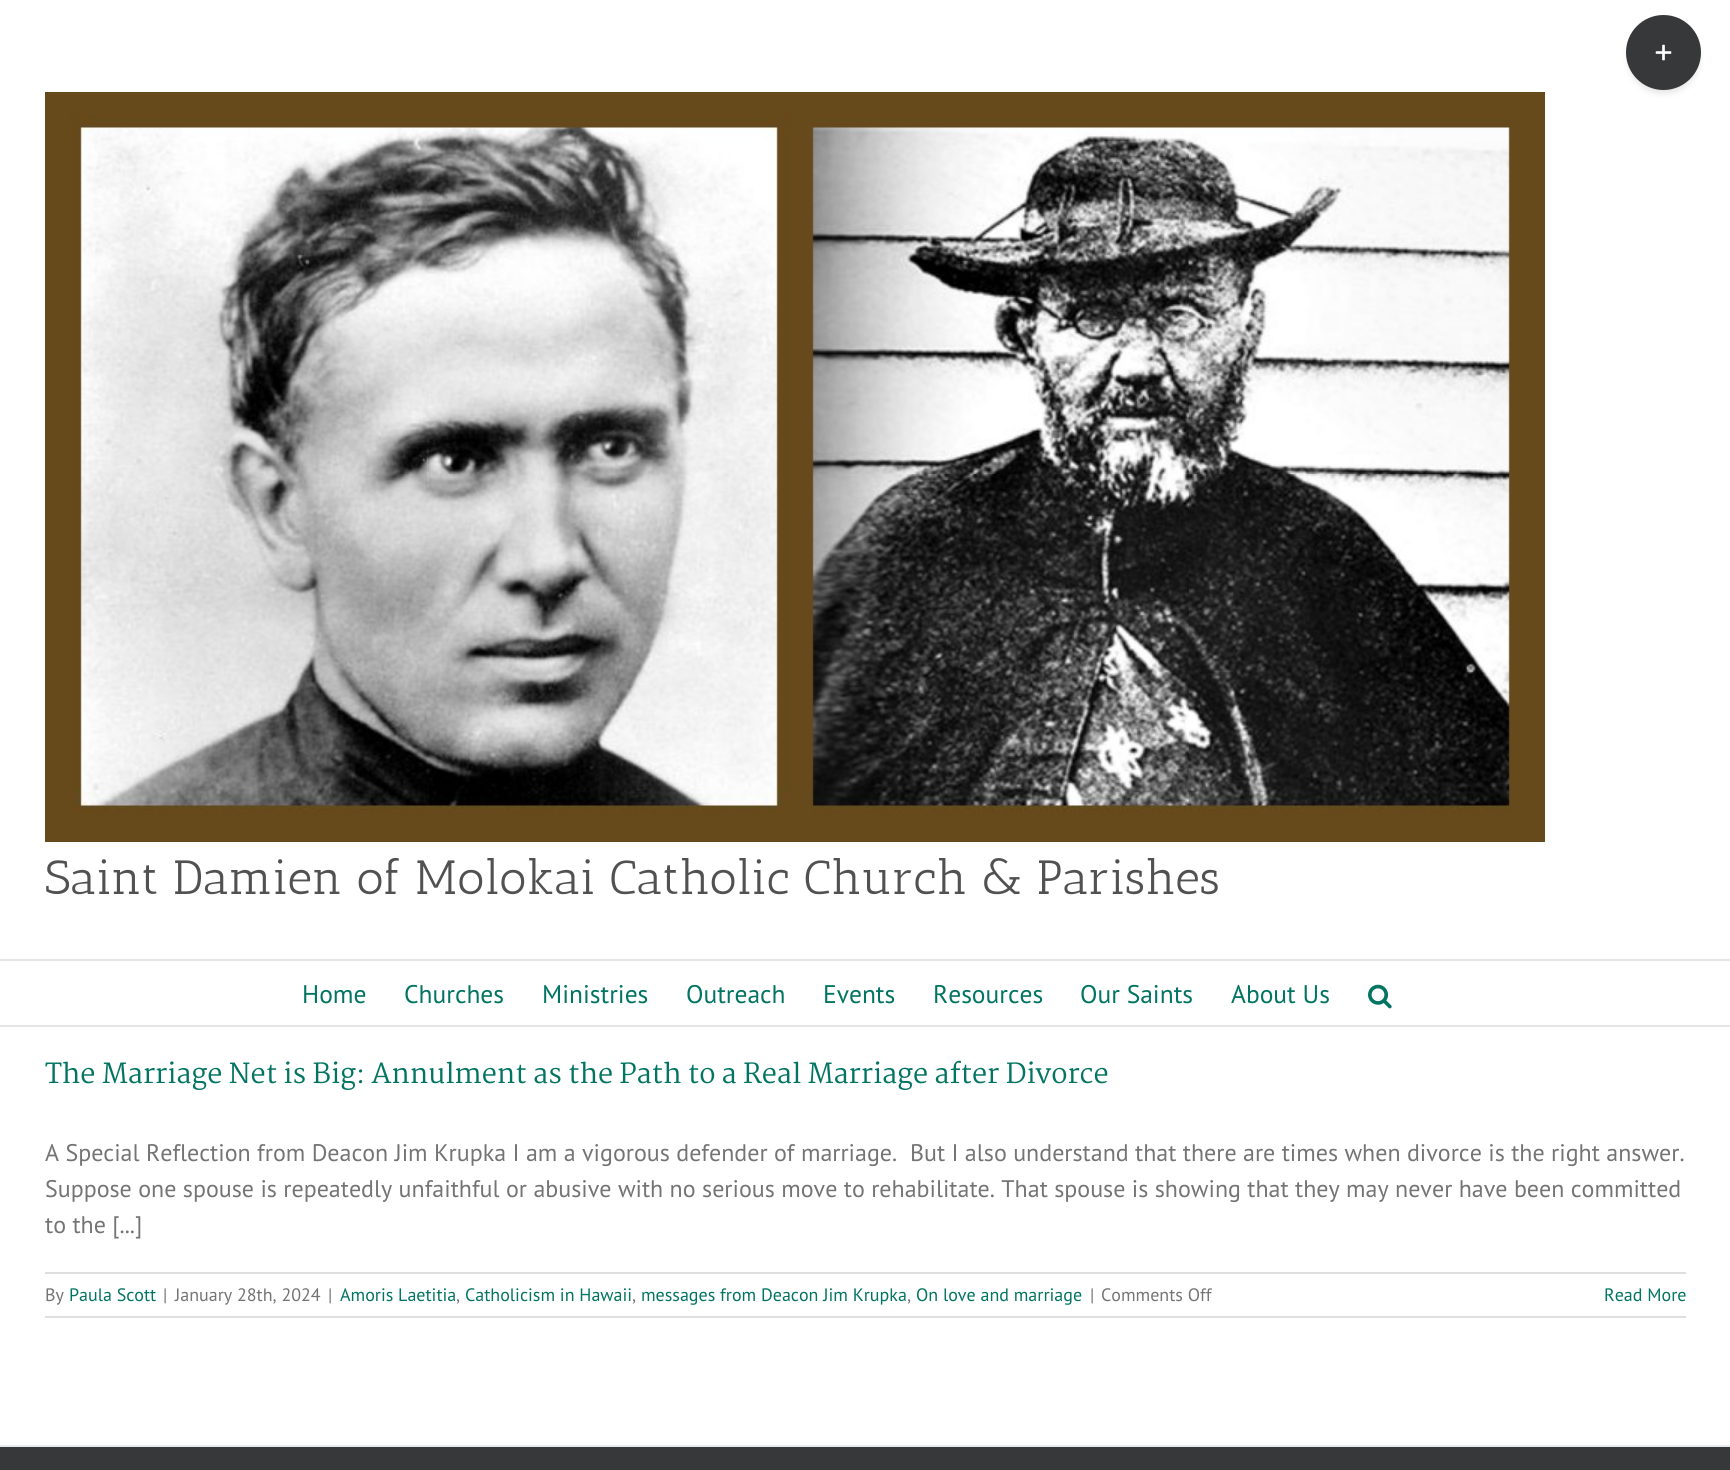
#include <cairo/cairo.h>
#include <math.h>
#include <stddef.h>

static cairo_t *cr;

static void use_color(int r, int g, int b) {
  cairo_set_source_rgb(cr, r / 255.0, g / 255.0, b / 255.0);
}

static void text(double x, double y, const char *s, const char *family, double size, int italic, int bold, int r, int g, int b) {
  cairo_select_font_face(cr, family, italic ? CAIRO_FONT_SLANT_ITALIC : CAIRO_FONT_SLANT_NORMAL,
    bold ? CAIRO_FONT_WEIGHT_BOLD : CAIRO_FONT_WEIGHT_NORMAL);
  cairo_set_font_size(cr, size);
  use_color(r, g, b);
  cairo_move_to(cr, x, y);
  cairo_show_text(cr, s);
}

static void box(double x, double y, double w, double h, int r, int g, int b) {
  use_color(r, g, b);
  cairo_rectangle(cr, x, y, w, h);
  cairo_fill(cr);
}

static void round_rect(double x, double y, double w, double h, double r) {
  cairo_new_sub_path(cr);
  cairo_arc(cr, x + w - r, y + h - r, r, 0, M_PI / 2);
  cairo_arc(cr, x + r, y + h - r, r, M_PI / 2, M_PI);
  cairo_arc(cr, x + r, y + r, r, M_PI, 1.5 * M_PI);
  cairo_arc(cr, x + w - r, y + r, r, 1.5 * M_PI, 2 * M_PI);
  cairo_close_path(cr);
}

static void shadow(double x, double y, double w, double h, double r, double blur, double alpha) {
  cairo_push_group_with_content(cr, CAIRO_CONTENT_ALPHA);
  cairo_set_operator(cr, CAIRO_OPERATOR_SOURCE);
  for (int i = 15; i >= -15 && fmin(w, h) + blur * i / 3 > 0; i -= 2) {
    double e = blur * i / 6;
    cairo_set_source_rgba(cr, 0, 0, 0, alpha * erfc((i - 1) / 8.5) / 2);
    round_rect(x - e, y - e, w + 2 * e, h + 2 * e, fmax(0, fmin(r + e + blur * .6, fmin(w, h) / 2 + e)));
    cairo_fill(cr);
  }
  cairo_pattern_t *soft = cairo_pop_group(cr);
  cairo_mask(cr, soft);
  cairo_pattern_destroy(soft);
}

static void picture(const char *path, double x, double y, double w, double h) {
  cairo_surface_t *image = cairo_image_surface_create_from_png(path);
  cairo_save(cr);
  cairo_set_source_surface(cr, image, x, y);
  cairo_rectangle(cr, x, y, w, h);
  cairo_fill(cr);
  cairo_restore(cr);
  cairo_surface_destroy(image);
}

static void draw(void) {
  use_color(255, 255, 255);
  cairo_paint(cr);
  use_color(0, 0, 0);
  shadow(1629, 23, 69, 69, 34.5, 4, 0.14);
  use_color(54, 56, 57);
  cairo_arc(cr, 1663.5, 52.5, 37.5, 0, 2 * M_PI);
  cairo_fill(cr);
  picture("img_01.png", 1655, 44, 17, 17);
  box(0, 959, 1730, 2, 229, 229, 229);
  picture("img_02.png", 45, 92, 1500, 750);
  box(0, 1025, 1730, 2, 229, 229, 229);
  picture("img_03.png", 1368, 984, 24, 25);
  box(45, 1272, 1641, 2, 224, 222, 222);
  box(45, 1316, 1641, 2, 224, 222, 222);
  box(0, 1447, 1730, 23, 54, 56, 57);
  box(0, 1445, 1730, 2, 233, 234, 238);
  text(45, 894, "Saint Damien of Molokai Catholic Church & Parishes", "Antic Slab", 48, 0, 0, 81, 81, 81);
  text(302, 1003, "Home", "PT Sans", 25.5, 0, 0, 2, 116, 98);
  text(404, 1003, "Churches", "PT Sans", 25.5, 0, 0, 2, 116, 98);
  text(542, 1003, "Ministries", "PT Sans", 25.5, 0, 0, 2, 116, 98);
  text(686, 1003, "Outreach", "PT Sans", 25.5, 0, 0, 2, 116, 98);
  text(823, 1003, "Events", "PT Sans", 25.5, 0, 0, 2, 116, 98);
  text(933, 1003, "Resources", "PT Sans", 25.5, 0, 0, 2, 116, 98);
  text(1080, 1003, "Our Saints", "PT Sans", 25.5, 0, 0, 2, 116, 98);
  text(1231, 1003, "About Us", "PT Sans", 25.5, 0, 0, 2, 116, 98);
  text(45, 1083, "The Marriage Net is Big: Annulment as the Path to a Real Marriage after Divorce", "Martel", 27, 0, 0, 2, 116, 98);
  text(45, 1161, "A Special Reflection from Deacon Jim Krupka I am a vigorous defender of marriage.  But I also understand that there are times when divorce is the right answer.", "PT Sans", 24, 0, 0, 116, 116, 116);
  text(45, 1197, "Suppose one spouse is repeatedly unfaithful or abusive with no serious move to rehabilitate. That spouse is showing that they may never have been committed", "PT Sans", 24, 0, 0, 116, 116, 116);
  text(45, 1233, "to the [...]", "PT Sans", 24, 0, 0, 116, 116, 116);
  text(45, 1301, "By", "PT Sans", 18, 0, 0, 116, 116, 116);
  text(69, 1301, "Paula Scott", "PT Sans", 18, 0, 0, 2, 116, 98);
  text(163, 1301, "|", "PT Sans", 18, 0, 0, 116, 116, 116);
  text(175, 1301, "January 28th, 2024", "PT Sans", 18, 0, 0, 116, 116, 116);
  text(328, 1301, "|", "PT Sans", 18, 0, 0, 116, 116, 116);
  text(340, 1301, "Amoris Laetitia", "PT Sans", 18, 0, 0, 2, 116, 98);
  text(456, 1301, ",", "PT Sans", 18, 0, 0, 116, 116, 116);
  text(465, 1301, "Catholicism in Hawaii", "PT Sans", 18, 0, 0, 2, 116, 98);
  text(632, 1301, ",", "PT Sans", 18, 0, 0, 116, 116, 116);
  text(641, 1301, "messages from Deacon Jim Krupka", "PT Sans", 18, 0, 0, 2, 116, 98);
  text(907, 1301, ",", "PT Sans", 18, 0, 0, 116, 116, 116);
  text(916, 1301, "On love and marriage", "PT Sans", 18, 0, 0, 2, 116, 98);
  text(1090, 1301, "|", "PT Sans", 18, 0, 0, 116, 116, 116);
  text(1101, 1301, "Comments Off", "PT Sans", 18, 0, 0, 116, 116, 116);
  text(1604, 1301, "Read More", "PT Sans", 18, 0, 0, 2, 116, 98);
}

int main(void) {
  cairo_surface_t *surface = cairo_image_surface_create(CAIRO_FORMAT_RGB24, 1730, 1470);
  cr = cairo_create(surface);
  cairo_font_options_t *options = cairo_font_options_create();
  cairo_font_options_set_hint_metrics(options, CAIRO_HINT_METRICS_OFF);
  cairo_font_options_set_hint_style(options, CAIRO_HINT_STYLE_NONE);
  cairo_set_font_options(cr, options);
  cairo_set_miter_limit(cr, 4);
  draw();
  cairo_surface_write_to_png(surface, "out.png");
  cairo_font_options_destroy(options);
  cairo_destroy(cr);
  cairo_surface_destroy(surface);
  return 0;
}
